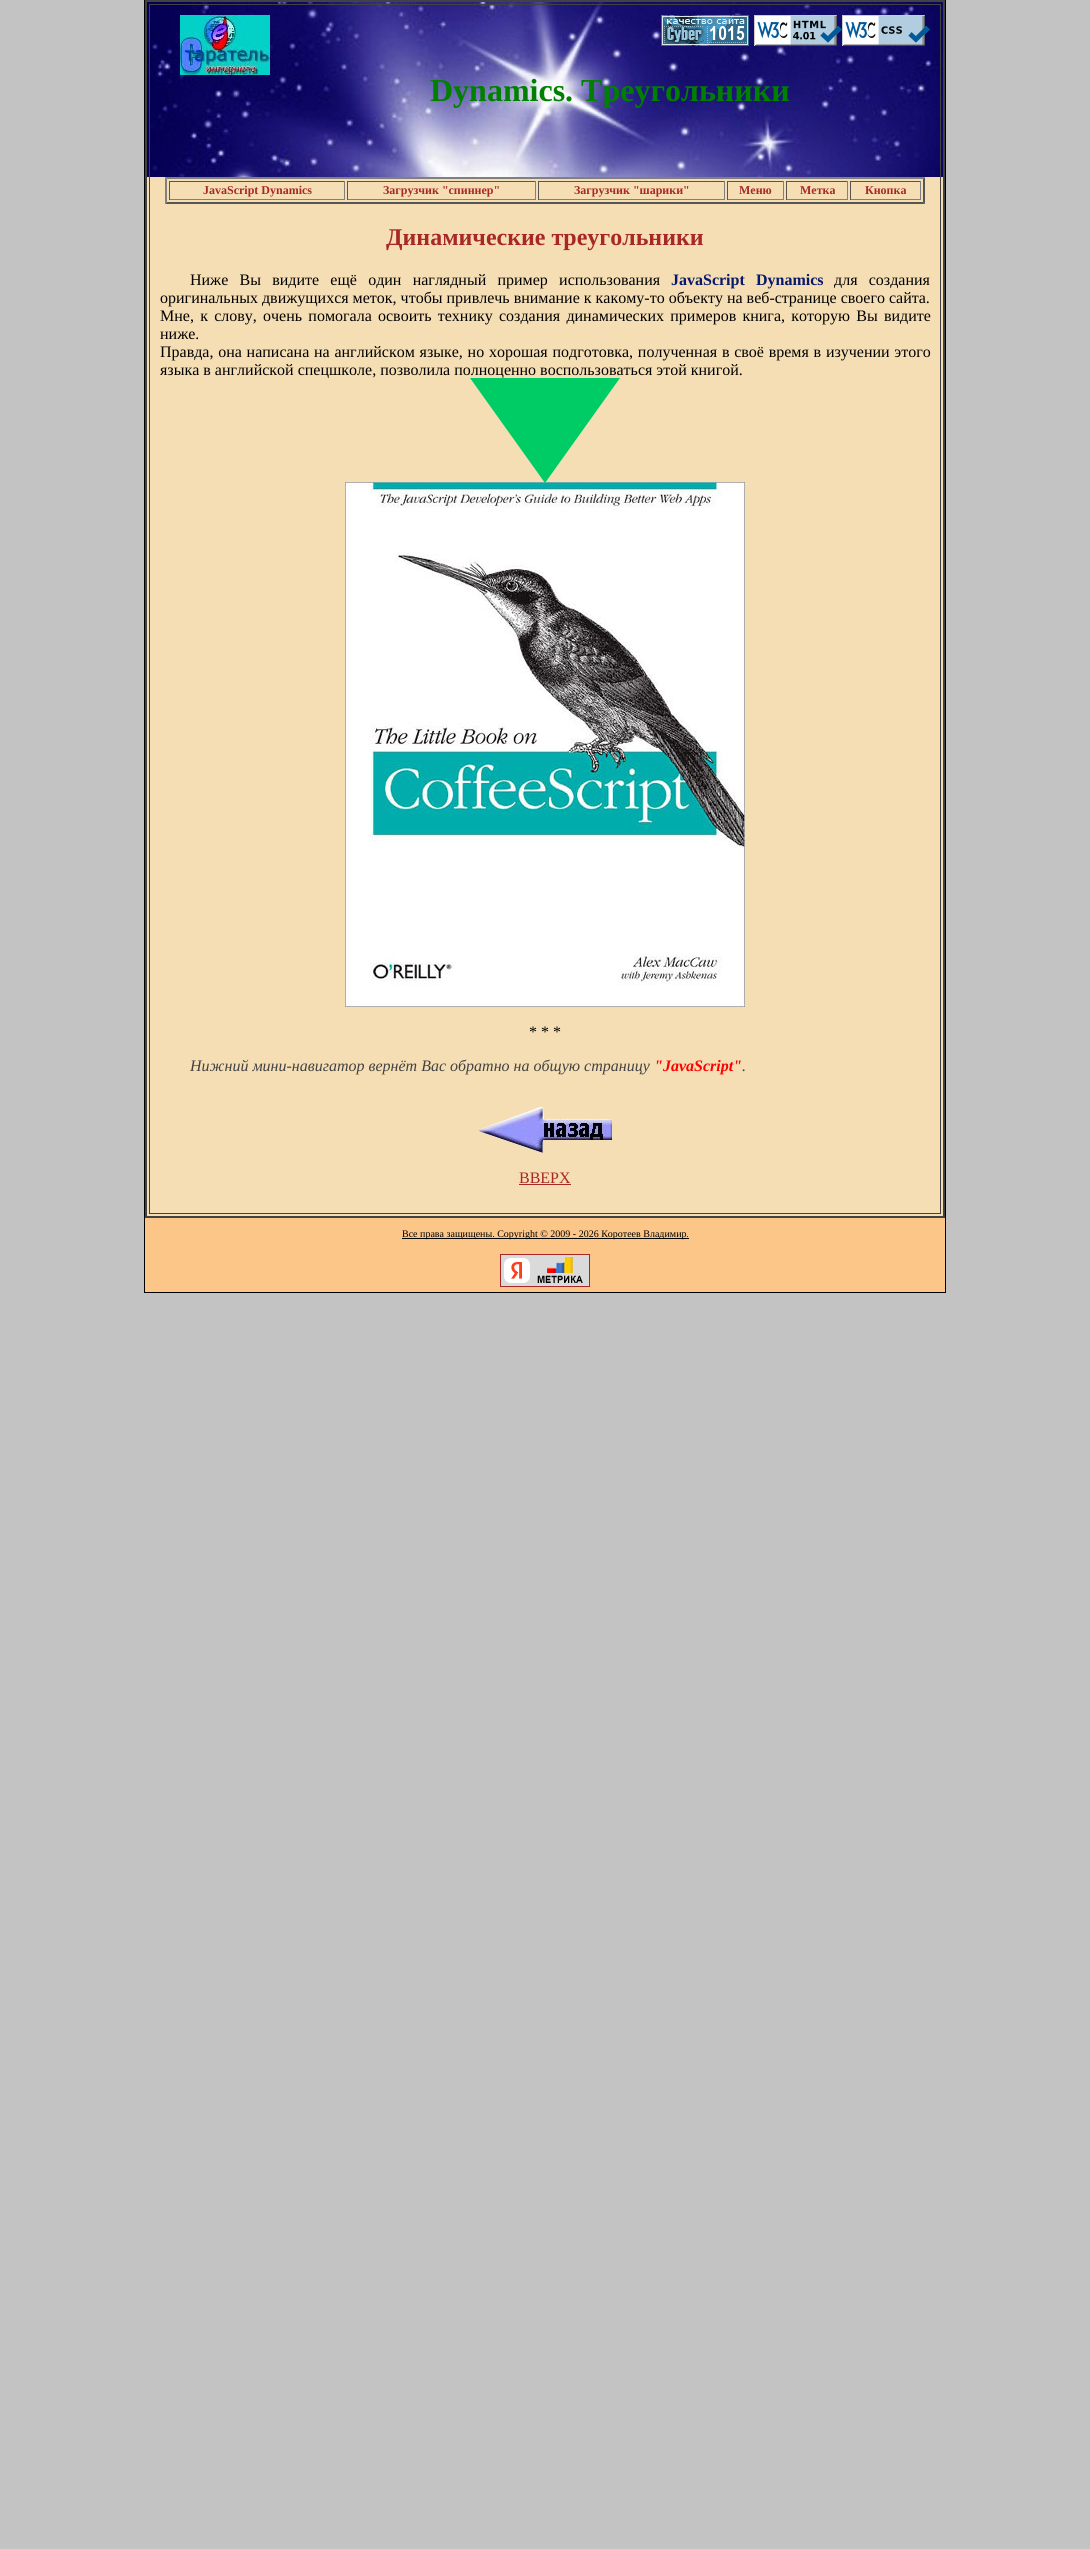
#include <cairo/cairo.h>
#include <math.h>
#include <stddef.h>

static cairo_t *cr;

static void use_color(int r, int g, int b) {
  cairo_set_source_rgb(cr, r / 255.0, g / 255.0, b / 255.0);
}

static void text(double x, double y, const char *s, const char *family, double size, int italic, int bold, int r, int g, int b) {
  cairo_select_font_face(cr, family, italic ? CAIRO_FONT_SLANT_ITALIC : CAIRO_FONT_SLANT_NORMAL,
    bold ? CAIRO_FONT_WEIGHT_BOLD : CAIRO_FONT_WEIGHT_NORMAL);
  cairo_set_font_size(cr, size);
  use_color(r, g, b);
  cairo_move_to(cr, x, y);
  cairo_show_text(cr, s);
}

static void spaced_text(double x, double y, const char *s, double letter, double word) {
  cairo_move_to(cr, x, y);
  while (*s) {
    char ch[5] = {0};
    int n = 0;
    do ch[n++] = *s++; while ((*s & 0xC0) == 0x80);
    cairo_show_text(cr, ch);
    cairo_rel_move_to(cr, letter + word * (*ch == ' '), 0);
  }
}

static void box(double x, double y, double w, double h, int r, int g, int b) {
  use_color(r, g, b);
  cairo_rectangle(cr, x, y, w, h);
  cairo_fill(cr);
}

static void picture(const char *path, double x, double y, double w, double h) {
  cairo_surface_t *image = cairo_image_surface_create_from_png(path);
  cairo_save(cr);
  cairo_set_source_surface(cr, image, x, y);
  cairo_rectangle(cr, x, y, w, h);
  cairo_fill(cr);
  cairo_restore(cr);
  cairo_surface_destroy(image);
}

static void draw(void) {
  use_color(195, 195, 195);
  cairo_paint(cr);
  box(145, 1218, 800, 74, 253, 198, 137);
  box(147, 177, 796, 1039, 245, 222, 179);
  picture("img_01.png", 147, 2, 796, 175);
  cairo_rectangle(cr, 146, 1, 798, 1216);
  use_color(66, 66, 66);
  cairo_stroke(cr);
  cairo_rectangle(cr, 149.5, 4.5, 791, 1209);
  cairo_set_line_width(cr, 1);
  cairo_stroke(cr);
  picture("img_02.png", 180, 15, 90, 60);
  picture("img_03.png", 661, 15, 88, 31);
  picture("img_04.png", 754, 15, 88, 31);
  picture("img_05.png", 842, 15, 88, 31);
  use_color(128, 128, 128);
  cairo_new_path(cr);
  cairo_move_to(cr, 165, 177);
  cairo_line_to(cr, 925, 177);
  cairo_line_to(cr, 923, 179);
  cairo_line_to(cr, 167, 179);
  cairo_close_path(cr);
  cairo_fill(cr);
  use_color(85, 85, 85);
  cairo_new_path(cr);
  cairo_move_to(cr, 925, 177);
  cairo_line_to(cr, 925, 204);
  cairo_line_to(cr, 923, 202);
  cairo_line_to(cr, 923, 179);
  cairo_close_path(cr);
  cairo_fill(cr);
  cairo_new_path(cr);
  cairo_move_to(cr, 925, 204);
  cairo_line_to(cr, 165, 204);
  cairo_line_to(cr, 167, 202);
  cairo_line_to(cr, 923, 202);
  cairo_close_path(cr);
  cairo_fill(cr);
  use_color(128, 128, 128);
  cairo_new_path(cr);
  cairo_move_to(cr, 165, 204);
  cairo_line_to(cr, 165, 177);
  cairo_line_to(cr, 167, 179);
  cairo_line_to(cr, 167, 202);
  cairo_close_path(cr);
  cairo_fill(cr);
  box(169, 181, 176, 1, 85, 85, 85);
  box(344, 181, 1, 19, 128, 128, 128);
  box(169, 199, 176, 1, 128, 128, 128);
  box(169, 181, 1, 19, 85, 85, 85);
  box(347, 181, 189, 1, 85, 85, 85);
  box(535, 181, 1, 19, 128, 128, 128);
  box(347, 199, 189, 1, 128, 128, 128);
  box(347, 181, 1, 19, 85, 85, 85);
  box(538, 181, 187, 1, 85, 85, 85);
  box(724, 181, 1, 19, 128, 128, 128);
  box(538, 199, 187, 1, 128, 128, 128);
  box(538, 181, 1, 19, 85, 85, 85);
  box(727, 181, 57, 1, 85, 85, 85);
  box(783, 181, 1, 19, 128, 128, 128);
  box(727, 199, 57, 1, 128, 128, 128);
  box(727, 181, 1, 19, 85, 85, 85);
  box(786, 181, 62, 1, 85, 85, 85);
  box(847, 181, 1, 19, 128, 128, 128);
  box(786, 199, 62, 1, 128, 128, 128);
  box(786, 181, 1, 19, 85, 85, 85);
  box(850, 181, 71, 1, 85, 85, 85);
  box(920, 181, 1, 19, 128, 128, 128);
  box(850, 199, 71, 1, 128, 128, 128);
  box(850, 181, 1, 19, 85, 85, 85);
  picture("img_06.png", 345, 482, 400, 525);
  picture("img_07.png", 479, 1107, 133, 46);
  box(519, 1184, 52, 1, 168, 40, 40);
  box(402, 1238, 287, 1, 0, 0, 0);
  cairo_rectangle(cr, 500.5, 1254.5, 89, 32);
  use_color(168, 40, 40);
  cairo_stroke(cr);
  picture("img_08.png", 501, 1255, 88, 31);
  cairo_rectangle(cr, 144.5, -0.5, 801, 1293);
  use_color(0, 0, 0);
  cairo_stroke(cr);
  text(430, 101, "Dynamics. Треугольники", "Liberation Serif", 32, 0, 1, 0, 128, 0);
  text(203, 194, "JavaScript Dynamics", "Liberation Serif", 12, 0, 1, 168, 40, 40);
  text(383, 194, "Загрузчик \"спиннер\"", "Liberation Serif", 12, 0, 1, 168, 40, 40);
  text(574, 194, "Загрузчик \"шарики\"", "Liberation Serif", 12, 0, 1, 168, 40, 40);
  text(739, 194, "Меню", "Liberation Serif", 12, 0, 1, 168, 40, 40);
  text(800, 194, "Метка", "Liberation Serif", 12, 0, 1, 168, 40, 40);
  text(865, 194, "Кнопка", "Liberation Serif", 12, 0, 1, 168, 40, 40);
  text(386, 245, "Динамические треугольники", "Liberation Serif", 24, 0, 1, 168, 40, 40);
  cairo_select_font_face(cr, "Liberation Serif", CAIRO_FONT_SLANT_NORMAL, CAIRO_FONT_WEIGHT_NORMAL);
  cairo_set_font_size(cr, 16);
  use_color(0, 0, 0);
  spaced_text(190, 285, "Ниже Вы видите ещё один наглядный пример использования", 0, 7.25);
  cairo_select_font_face(cr, "Liberation Serif", CAIRO_FONT_SLANT_NORMAL, CAIRO_FONT_WEIGHT_BOLD);
  use_color(7, 25, 107);
  spaced_text(671, 285, "JavaScript Dynamics", 0, 7.25);
  cairo_select_font_face(cr, "Liberation Serif", CAIRO_FONT_SLANT_NORMAL, CAIRO_FONT_WEIGHT_NORMAL);
  use_color(0, 0, 0);
  spaced_text(834, 285, "для создания", 0, 7.25);
  text(160, 303, "оригинальных движущихся меток, чтобы привлечь внимание к какому-то объекту на веб-странице своего сайта.", "Liberation Serif", 16, 0, 0, 0, 0, 0);
  spaced_text(160, 321, "Мне, к слову, очень помогала освоить технику создания динамических примеров книга, которую Вы видите", 0, 2.25);
  text(160, 339, "ниже.", "Liberation Serif", 16, 0, 0, 0, 0, 0);
  spaced_text(160, 357, "Правда, она написана на английском языке, но хорошая подготовка, полученная в своё время в изучении этого", 0, 0.75);
  text(160, 375, "языка в английской спецшколе, позволила полноценно воспользоваться этой книгой.", "Liberation Serif", 16, 0, 0, 0, 0, 0);
  use_color(0, 204, 102);
  cairo_new_path(cr);
  cairo_move_to(cr, 470, 378);
  cairo_line_to(cr, 620, 378);
  cairo_line_to(cr, 545, 483);
  cairo_close_path(cr);
  cairo_fill(cr);
  text(529, 1037, "* * *", "Liberation Serif", 16, 0, 0, 0, 0, 0);
  text(190, 1071, "Нижний мини-навигатор вернёт Вас обратно на общую страницу", "Liberation Serif", 16, 1, 0, 66, 66, 66);
  text(654, 1071, "\"JavaScript\"", "Liberation Serif", 16, 1, 1, 255, 0, 0);
  text(742, 1071, ".", "Liberation Serif", 16, 1, 0, 66, 66, 66);
  text(519, 1183, "ВВЕРХ", "Liberation Serif", 16, 0, 0, 168, 40, 40);
  text(402, 1237, "Все права защищены. Copyright © 2009 - 2026 Коротеев Владимир.", "Liberation Serif", 10, 0, 0, 0, 0, 0);
}

int main(void) {
  cairo_surface_t *surface = cairo_image_surface_create(CAIRO_FORMAT_RGB24, 1090, 2549);
  cr = cairo_create(surface);
  cairo_font_options_t *options = cairo_font_options_create();
  cairo_font_options_set_hint_metrics(options, CAIRO_HINT_METRICS_OFF);
  cairo_font_options_set_hint_style(options, CAIRO_HINT_STYLE_NONE);
  cairo_set_font_options(cr, options);
  cairo_set_miter_limit(cr, 4);
  draw();
  cairo_surface_write_to_png(surface, "out.png");
  cairo_font_options_destroy(options);
  cairo_destroy(cr);
  cairo_surface_destroy(surface);
  return 0;
}
